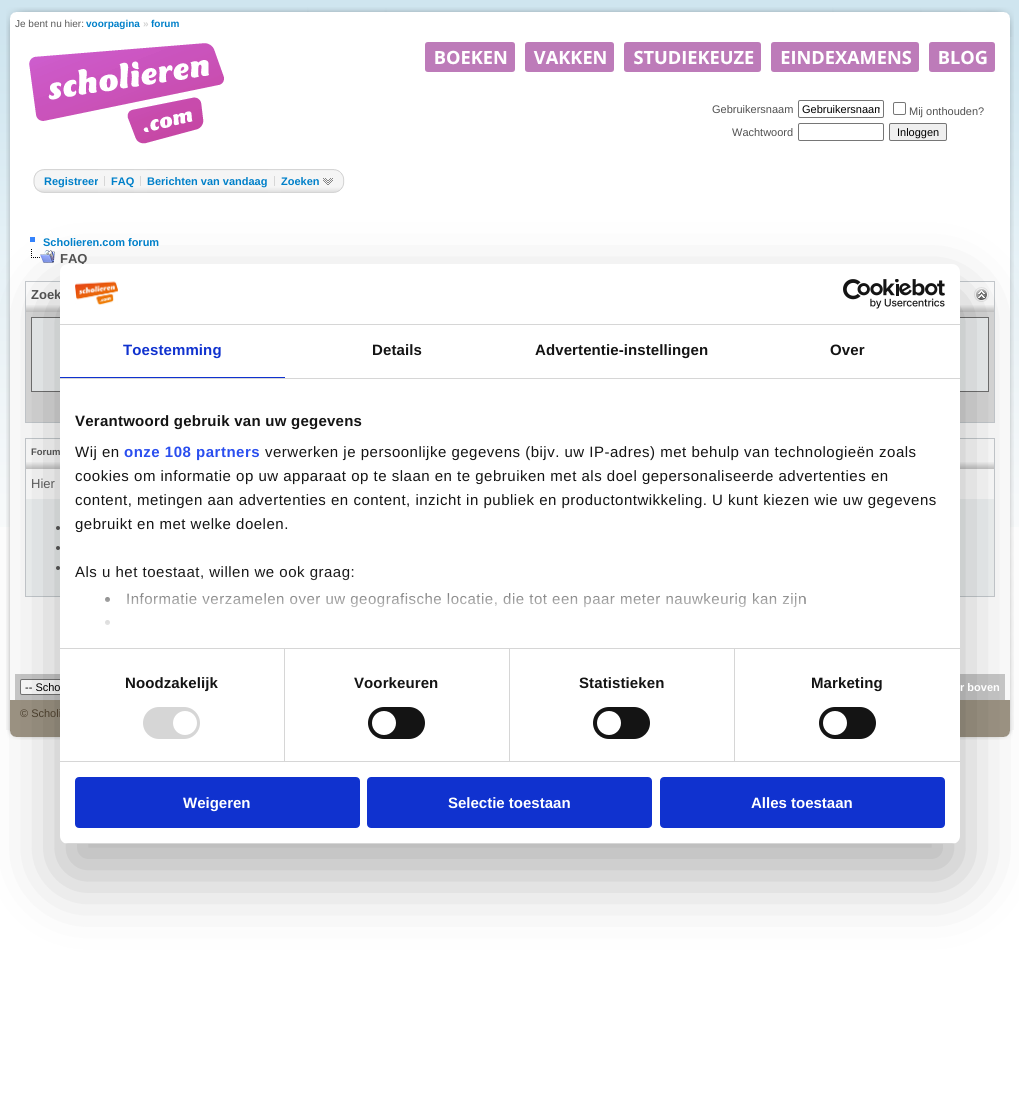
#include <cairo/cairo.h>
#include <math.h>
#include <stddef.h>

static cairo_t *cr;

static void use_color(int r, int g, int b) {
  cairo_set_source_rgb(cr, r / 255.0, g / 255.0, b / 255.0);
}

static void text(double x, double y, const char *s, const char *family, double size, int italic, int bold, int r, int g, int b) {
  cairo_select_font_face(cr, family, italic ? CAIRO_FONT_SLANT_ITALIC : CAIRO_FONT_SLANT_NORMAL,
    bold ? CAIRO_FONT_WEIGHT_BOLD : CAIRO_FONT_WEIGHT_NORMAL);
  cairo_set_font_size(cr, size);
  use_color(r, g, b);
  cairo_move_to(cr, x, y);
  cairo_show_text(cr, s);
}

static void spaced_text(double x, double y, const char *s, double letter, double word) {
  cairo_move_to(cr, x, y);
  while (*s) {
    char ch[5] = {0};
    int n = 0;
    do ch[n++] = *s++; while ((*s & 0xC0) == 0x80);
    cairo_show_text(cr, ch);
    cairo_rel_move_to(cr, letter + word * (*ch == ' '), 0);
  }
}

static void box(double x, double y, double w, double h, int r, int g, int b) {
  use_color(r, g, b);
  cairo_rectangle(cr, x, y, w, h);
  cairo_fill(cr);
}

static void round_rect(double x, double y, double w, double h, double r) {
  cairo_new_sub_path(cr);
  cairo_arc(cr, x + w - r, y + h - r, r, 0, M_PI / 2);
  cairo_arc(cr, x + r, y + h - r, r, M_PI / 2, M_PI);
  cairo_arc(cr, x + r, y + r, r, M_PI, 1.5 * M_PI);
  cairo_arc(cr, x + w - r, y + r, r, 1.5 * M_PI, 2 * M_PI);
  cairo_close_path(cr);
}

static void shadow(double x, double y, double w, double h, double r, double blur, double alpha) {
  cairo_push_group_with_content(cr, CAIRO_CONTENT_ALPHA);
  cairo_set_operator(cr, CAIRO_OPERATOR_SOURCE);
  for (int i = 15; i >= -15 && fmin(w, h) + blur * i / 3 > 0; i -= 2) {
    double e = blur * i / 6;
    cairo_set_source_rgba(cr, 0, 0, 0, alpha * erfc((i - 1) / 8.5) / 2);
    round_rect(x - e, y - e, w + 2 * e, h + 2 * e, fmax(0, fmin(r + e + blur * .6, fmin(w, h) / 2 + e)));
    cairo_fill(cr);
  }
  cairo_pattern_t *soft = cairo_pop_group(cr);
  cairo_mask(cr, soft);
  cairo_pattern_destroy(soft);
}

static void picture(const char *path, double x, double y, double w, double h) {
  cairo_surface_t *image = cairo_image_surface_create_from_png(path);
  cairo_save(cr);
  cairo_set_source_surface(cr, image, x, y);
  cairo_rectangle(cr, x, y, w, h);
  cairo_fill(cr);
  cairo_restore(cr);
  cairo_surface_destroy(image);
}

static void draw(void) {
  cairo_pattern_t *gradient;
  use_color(255, 255, 255);
  cairo_paint(cr);
  picture("img_01.png", 0, 0, 1019, 527);
  picture("img_02.png", 6, 7, 1008, 30);
  picture("img_03.png", 6, 37, 1008, 693);
  picture("img_04.png", 29, 43, 195, 101);
  picture("img_05.png", 425, 42, 570, 30);
  round_rect(798.5, 100.5, 85, 17, 1.5);
  use_color(118, 118, 118);
  cairo_set_line_width(cr, 1);
  cairo_stroke(cr);
  round_rect(893.5, 102.5, 12, 12, 1.5);
  cairo_stroke(cr);
  round_rect(798.5, 123.5, 85, 17, 1.5);
  cairo_stroke(cr);
  use_color(239, 239, 239);
  round_rect(889.5, 123.5, 57, 17, 1.5);
  cairo_fill_preserve(cr);
  use_color(118, 118, 118);
  cairo_stroke(cr);
  picture("img_06.png", 33, 169, 11, 24);
  box(44, 169, 54, 24, 213, 213, 213);
  picture("img_07.png", 44, 170, 54, 22);
  box(111, 169, 23, 24, 213, 213, 213);
  picture("img_09.png", 111, 170, 23, 22);
  picture("img_08.png", 134, 169, 13, 24);
  box(147, 169, 121, 24, 213, 213, 213);
  picture("img_10.png", 147, 170, 121, 22);
  picture("img_08.png", 268, 169, 13, 24);
  box(281, 169, 53, 24, 213, 213, 213);
  picture("img_11.png", 281, 170, 53, 22);
  picture("img_12.png", 323, 178, 10, 7);
  picture("img_13.png", 334, 169, 11, 24);
  box(30, 237, 5, 5, 53, 132, 253);
  picture("img_14.png", 31, 249, 24, 14);
  cairo_rectangle(cr, 25.5, 281.5, 969, 141);
  use_color(199, 204, 208);
  cairo_stroke(cr);
  picture("img_15.png", 26, 305, 968, 7);
  picture("img_16.png", 974, 287, 15, 15);
  box(26, 312, 968, 110, 219, 219, 219);
  use_color(241, 244, 245);
  cairo_rectangle(cr, 31.5, 317.5, 957, 74);
  cairo_fill_preserve(cr);
  use_color(113, 113, 113);
  cairo_stroke(cr);
  cairo_rectangle(cr, 25.5, 438.5, 969, 158);
  use_color(199, 204, 208);
  cairo_stroke(cr);
  picture("img_15.png", 26, 462, 968, 7);
  box(26, 499, 968, 97, 241, 244, 245);
  use_color(90, 90, 90);
  cairo_arc(cr, 58, 528, 2, 0, 2 * M_PI);
  cairo_fill(cr);
  cairo_arc(cr, 58, 548, 2, 0, 2 * M_PI);
  cairo_fill(cr);
  cairo_arc(cr, 58, 568, 2, 0, 2 * M_PI);
  cairo_fill(cr);
  box(15, 674, 45, 26, 202, 202, 202);
  use_color(255, 255, 255);
  round_rect(20.5, 679.5, 202, 15, 1.5);
  cairo_fill_preserve(cr);
  use_color(118, 118, 118);
  cairo_stroke(cr);
  box(960, 674, 45, 26, 202, 202, 202);
  box(10, 700, 1000, 30, 158, 149, 133);
  picture("img_19.png", 7, 730, 1006, 10);
  use_color(0, 0, 0);
  shadow(60, 296, 900, 580, 8, 34, 0.3);
  text(15, 27, "Je bent nu hier:", "Liberation Sans", 10, 0, 0, 90, 90, 90);
  text(86, 27, "voorpagina", "Liberation Sans", 10, 0, 1, 0, 128, 201);
  text(143, 27, "»", "Liberation Sans", 10, 0, 1, 210, 210, 210);
  text(151, 27, "forum", "Liberation Sans", 10, 0, 1, 0, 128, 201);
  text(712, 113, "Gebruikersnaam", "Liberation Sans", 11, 0, 0, 81, 81, 81);
  cairo_save(cr);
  cairo_rectangle(cr, 802, 103, 78, 12);
  cairo_clip(cr);
  text(802, 113, "Gebruikersnaam", "Liberation Sans", 11, 0, 0, 0, 0, 0);
  cairo_restore(cr);
  text(909, 115, "Mij onthouden?", "Liberation Sans", 11, 0, 0, 81, 81, 81);
  text(732, 136, "Wachtwoord", "Liberation Sans", 11, 0, 0, 81, 81, 81);
  text(897, 136, "Inloggen", "Liberation Sans", 11, 0, 0, 0, 0, 0);
  text(44, 185, "Registreer", "Liberation Sans", 11, 0, 1, 0, 128, 201);
  picture("img_08.png", 98, 169, 13, 24);
  text(111, 185, "FAQ", "Liberation Sans", 11, 0, 1, 0, 128, 201);
  text(147, 185, "Berichten van vandaag", "Liberation Sans", 11, 0, 1, 0, 128, 201);
  text(281, 185, "Zoeken", "Liberation Sans", 11, 0, 1, 0, 128, 201);
  text(43, 246, "Scholieren.com forum", "Liberation Sans", 11, 0, 1, 0, 128, 201);
  text(60, 263, "FAQ", "Liberation Sans", 13, 0, 1, 81, 81, 81);
  text(31, 299, "Zoek", "Liberation Sans", 13, 0, 1, 81, 81, 81);
  text(31, 455, "Forum", "Liberation Sans", 9.5, 0, 1, 81, 81, 81);
  text(31, 488, "Hier", "Liberation Sans", 13, 0, 0, 90, 90, 90);
  text(25, 691, "-- Scho", "Liberation Sans", 11, 0, 0, 0, 0, 0);
  text(960, 691, "r boven", "Liberation Sans", 11, 0, 1, 255, 255, 255);
  text(20, 717, "© Scholi", "Liberation Sans", 11, 0, 0, 74, 62, 44);
  use_color(255, 255, 255);
  round_rect(60, 264, 900, 580, 8);
  cairo_fill(cr);
  box(60, 324, 900, 1, 214, 214, 214);
  picture("img_17.png", 75, 281, 43, 24);
  picture("img_18.png", 843, 279, 102, 30);
  box(60, 378, 900, 1, 214, 214, 214);
  box(60, 377, 225, 1, 16, 50, 207);
  cairo_select_font_face(cr, "Liberation Sans", CAIRO_FONT_SLANT_NORMAL, CAIRO_FONT_WEIGHT_BOLD);
  cairo_set_font_size(cr, 15);
  spaced_text(123, 355, "Toestemming", 0.1, 0);
  use_color(20, 20, 20);
  spaced_text(372, 355, "Details", 0.1, 0);
  spaced_text(535, 355, "Advertentie-instellingen", 0.1, 0);
  spaced_text(830, 355, "Over", 0.1, 0);
  box(60, 648, 900, 1, 214, 214, 214);
  use_color(20, 20, 20);
  spaced_text(75, 426, "Verantwoord gebruik van uw gegevens", 0.25, 0);
  cairo_select_font_face(cr, "Liberation Sans", CAIRO_FONT_SLANT_NORMAL, CAIRO_FONT_WEIGHT_NORMAL);
  spaced_text(75, 457, "Wij en", 0.5, 0);
  cairo_select_font_face(cr, "Liberation Sans", CAIRO_FONT_SLANT_NORMAL, CAIRO_FONT_WEIGHT_BOLD);
  use_color(42, 78, 239);
  spaced_text(124, 457, "onze 108 partners", 0.5, 0);
  cairo_select_font_face(cr, "Liberation Sans", CAIRO_FONT_SLANT_NORMAL, CAIRO_FONT_WEIGHT_NORMAL);
  use_color(20, 20, 20);
  spaced_text(265, 457, "verwerken je persoonlijke gegevens (bijv. uw IP-adres) met behulp van technologieën zoals", 0.5, 0);
  spaced_text(75, 481, "cookies om informatie op uw apparaat op te slaan en te gebruiken met als doel gepersonaliseerde advertenties en", 0.5, 0);
  spaced_text(75, 505, "content, metingen aan advertenties en content, inzicht in publiek en productontwikkeling. U kunt kiezen wie uw gegevens", 0.5, 0);
  spaced_text(75, 529, "gebruikt en met welke doelen.", 0.5, 0);
  spaced_text(75, 577, "Als u het toestaat, willen we ook graag:", 0.5, 0);
  cairo_new_path(cr);
  cairo_arc(cr, 107.5, 599.5, 2.5, 0, 2 * M_PI);
  cairo_fill(cr);
  spaced_text(126, 604, "Informatie verzamelen over uw geografische locatie, die tot een paar meter nauwkeurig kan zijn", 0.5, 0);
  cairo_new_path(cr);
  cairo_arc(cr, 107.5, 622.5, 2.5, 0, 2 * M_PI);
  cairo_fill(cr);
  gradient = cairo_pattern_create_linear(504, 648, 504, 573);
  cairo_pattern_add_color_stop_rgba(gradient, 0, 1, 1, 1, 1);
  cairo_pattern_add_color_stop_rgba(gradient, 0.5, 1, 1, 1, 0.8);
  cairo_pattern_add_color_stop_rgba(gradient, 1, 1, 1, 1, 0);
  cairo_set_source(cr, gradient);
  cairo_pattern_destroy(gradient);
  cairo_rectangle(cr, 74, 574, 731, 51);
  cairo_fill(cr);
  box(60, 761, 900, 1, 214, 214, 214);
  box(284, 649, 1, 112, 214, 214, 214);
  cairo_select_font_face(cr, "Liberation Sans", CAIRO_FONT_SLANT_NORMAL, CAIRO_FONT_WEIGHT_BOLD);
  use_color(20, 20, 20);
  spaced_text(125, 688, "Noodzakelijk", 0.1, 0);
  use_color(214, 214, 214);
  round_rect(143, 707, 57, 32, 16);
  cairo_fill(cr);
  use_color(255, 255, 255);
  cairo_arc(cr, 185, 723, 12, 0, 2 * M_PI);
  cairo_fill(cr);
  box(509, 649, 1, 112, 214, 214, 214);
  use_color(20, 20, 20);
  spaced_text(354, 688, "Voorkeuren", 0.1, 0);
  round_rect(368, 707, 57, 32, 16);
  cairo_fill(cr);
  use_color(255, 255, 255);
  cairo_arc(cr, 384, 723, 12, 0, 2 * M_PI);
  cairo_fill(cr);
  box(734, 649, 1, 112, 214, 214, 214);
  use_color(20, 20, 20);
  spaced_text(579, 688, "Statistieken", 0.1, 0);
  round_rect(593, 707, 57, 32, 16);
  cairo_fill(cr);
  use_color(255, 255, 255);
  cairo_arc(cr, 609, 723, 12, 0, 2 * M_PI);
  cairo_fill(cr);
  use_color(20, 20, 20);
  spaced_text(811, 688, "Marketing", 0.1, 0);
  round_rect(819, 707, 57, 32, 16);
  cairo_fill(cr);
  use_color(255, 255, 255);
  cairo_arc(cr, 835, 723, 12, 0, 2 * M_PI);
  cairo_fill(cr);
  cairo_save(cr);
  round_rect(60, 264, 900, 580, 8);
  cairo_clip(cr);
  box(60, 843, 900, 1, 214, 214, 214);
  cairo_restore(cr);
  use_color(16, 50, 207);
  round_rect(76, 778, 283, 49, 3);
  cairo_fill_preserve(cr);
  cairo_set_line_width(cr, 2);
  cairo_stroke(cr);
  text(183, 808, "Weigeren", "Liberation Sans", 15, 0, 1, 255, 255, 255);
  use_color(16, 50, 207);
  round_rect(368, 778, 283, 49, 3);
  cairo_fill_preserve(cr);
  cairo_stroke(cr);
  text(448, 808, "Selectie toestaan", "Liberation Sans", 15, 0, 1, 255, 255, 255);
  use_color(16, 50, 207);
  round_rect(661, 778, 283, 49, 3);
  cairo_fill_preserve(cr);
  cairo_stroke(cr);
  text(751, 808, "Alles toestaan", "Liberation Sans", 15, 0, 1, 255, 255, 255);
}

int main(void) {
  cairo_surface_t *surface = cairo_image_surface_create(CAIRO_FORMAT_RGB24, 1019, 1107);
  cr = cairo_create(surface);
  cairo_font_options_t *options = cairo_font_options_create();
  cairo_font_options_set_hint_metrics(options, CAIRO_HINT_METRICS_OFF);
  cairo_font_options_set_hint_style(options, CAIRO_HINT_STYLE_NONE);
  cairo_set_font_options(cr, options);
  cairo_set_miter_limit(cr, 4);
  draw();
  cairo_surface_write_to_png(surface, "out.png");
  cairo_font_options_destroy(options);
  cairo_destroy(cr);
  cairo_surface_destroy(surface);
  return 0;
}
